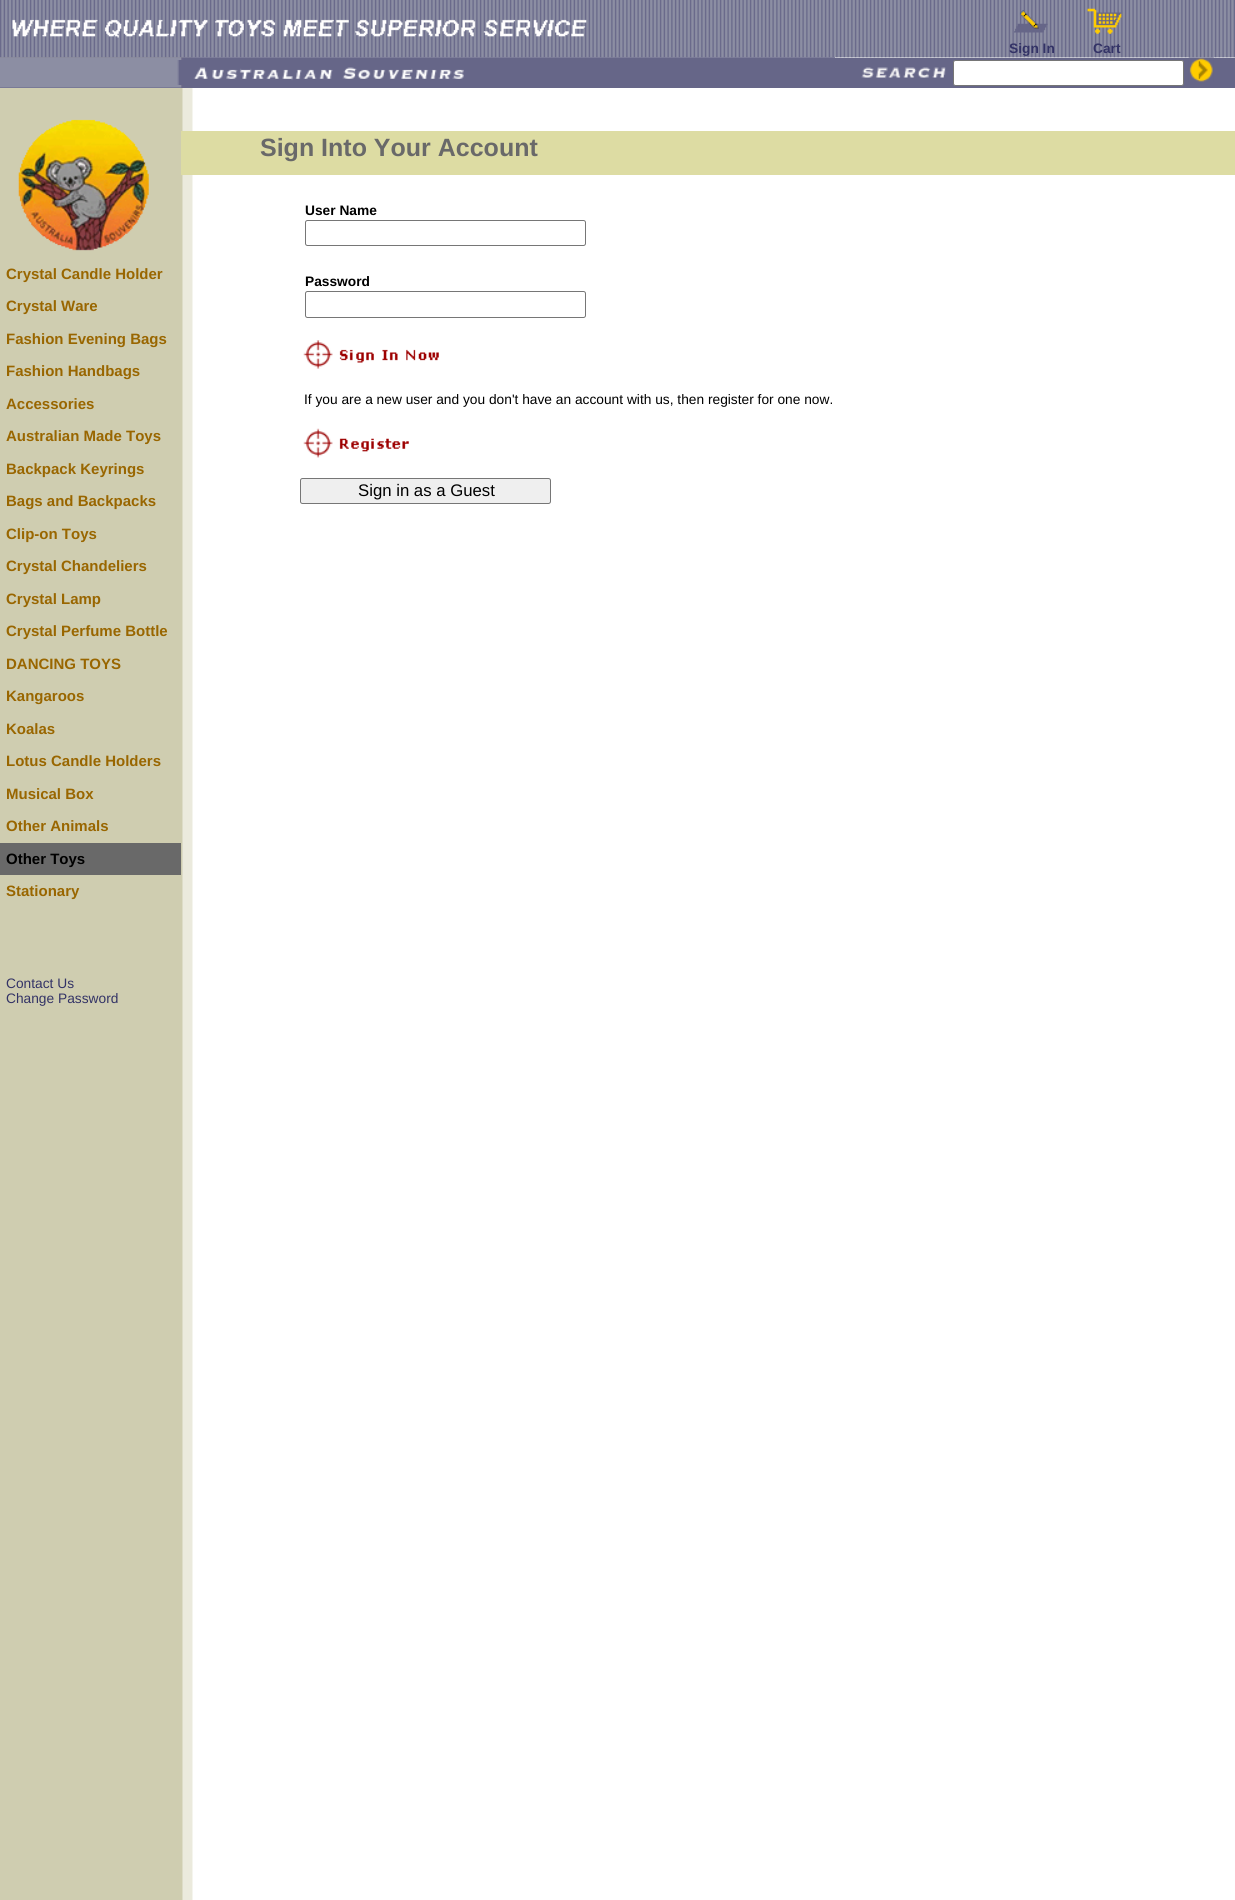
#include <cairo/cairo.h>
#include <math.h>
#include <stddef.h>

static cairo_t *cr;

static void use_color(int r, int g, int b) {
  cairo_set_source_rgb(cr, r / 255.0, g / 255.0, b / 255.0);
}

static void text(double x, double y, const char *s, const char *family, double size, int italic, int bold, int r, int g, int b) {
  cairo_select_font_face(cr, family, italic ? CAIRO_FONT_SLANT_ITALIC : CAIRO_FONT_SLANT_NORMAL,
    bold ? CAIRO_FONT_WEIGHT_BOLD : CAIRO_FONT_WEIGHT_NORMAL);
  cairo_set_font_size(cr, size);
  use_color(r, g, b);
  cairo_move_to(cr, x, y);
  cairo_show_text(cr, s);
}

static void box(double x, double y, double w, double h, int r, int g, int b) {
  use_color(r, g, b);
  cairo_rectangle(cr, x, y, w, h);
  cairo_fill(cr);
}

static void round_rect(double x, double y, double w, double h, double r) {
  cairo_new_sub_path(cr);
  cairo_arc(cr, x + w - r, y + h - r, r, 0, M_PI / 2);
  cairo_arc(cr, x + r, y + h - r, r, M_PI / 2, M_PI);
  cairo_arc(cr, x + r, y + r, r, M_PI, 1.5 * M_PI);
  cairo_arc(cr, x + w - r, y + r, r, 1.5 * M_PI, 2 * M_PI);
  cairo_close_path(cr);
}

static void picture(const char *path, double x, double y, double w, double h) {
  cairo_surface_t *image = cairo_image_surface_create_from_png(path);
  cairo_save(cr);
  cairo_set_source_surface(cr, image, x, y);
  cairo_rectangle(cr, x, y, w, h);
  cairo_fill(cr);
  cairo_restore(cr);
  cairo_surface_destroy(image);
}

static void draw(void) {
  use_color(255, 255, 255);
  cairo_paint(cr);
  picture("img_01.png", 0, 57, 193, 1843);
  picture("img_02.png", 0, 0, 1235, 58);
  picture("img_03.png", 12, 19, 575, 19);
  picture("img_04.png", 1014, 10, 34, 23);
  picture("img_05.png", 1087, 8, 35, 26);
  box(0, 58, 1235, 30, 102, 102, 136);
  picture("img_06.png", 0, 57, 835, 31);
  picture("img_07.png", 177, 60, 287, 25);
  picture("img_08.png", 861, 67, 85, 12);
  use_color(255, 255, 255);
  round_rect(953.5, 60.5, 230, 25, 2);
  cairo_fill_preserve(cr);
  use_color(118, 118, 118);
  cairo_set_line_width(cr, 1);
  cairo_stroke(cr);
  picture("img_09.png", 1188, 57, 26, 25);
  picture("img_10.png", 18, 119, 131, 132);
  box(0, 843, 181, 32, 105, 105, 105);
  box(181, 131, 1054, 44, 221, 220, 163);
  round_rect(305.5, 220.5, 280, 25, 2);
  use_color(118, 118, 118);
  cairo_stroke(cr);
  round_rect(305.5, 291.5, 280, 26, 2);
  cairo_stroke(cr);
  picture("img_11.png", 303, 340, 136, 29);
  picture("img_12.png", 303, 428, 106, 30);
  use_color(239, 239, 239);
  round_rect(300.5, 478.5, 250, 25, 2);
  cairo_fill_preserve(cr);
  use_color(118, 118, 118);
  cairo_stroke(cr);
  text(1009, 53, "Sign In", "Liberation Sans", 13.75, 0, 1, 51, 51, 102);
  text(1093, 53, "Cart", "Liberation Sans", 13.75, 0, 1, 51, 51, 102);
  text(6, 279, "Crystal Candle Holder", "Liberation Sans", 15, 0, 1, 153, 102, 0);
  text(6, 311, "Crystal Ware", "Liberation Sans", 15, 0, 1, 153, 102, 0);
  text(6, 344, "Fashion Evening Bags", "Liberation Sans", 15, 0, 1, 153, 102, 0);
  text(6, 376, "Fashion Handbags", "Liberation Sans", 15, 0, 1, 153, 102, 0);
  text(6, 409, "Accessories", "Liberation Sans", 15, 0, 1, 153, 102, 0);
  text(6, 441, "Australian Made Toys", "Liberation Sans", 15, 0, 1, 153, 102, 0);
  text(6, 474, "Backpack Keyrings", "Liberation Sans", 15, 0, 1, 153, 102, 0);
  text(6, 506, "Bags and Backpacks", "Liberation Sans", 15, 0, 1, 153, 102, 0);
  text(6, 539, "Clip-on Toys", "Liberation Sans", 15, 0, 1, 153, 102, 0);
  text(6, 571, "Crystal Chandeliers", "Liberation Sans", 15, 0, 1, 153, 102, 0);
  text(6, 604, "Crystal Lamp", "Liberation Sans", 15, 0, 1, 153, 102, 0);
  text(6, 636, "Crystal Perfume Bottle", "Liberation Sans", 15, 0, 1, 153, 102, 0);
  text(6, 669, "DANCING TOYS", "Liberation Sans", 15, 0, 1, 153, 102, 0);
  text(6, 701, "Kangaroos", "Liberation Sans", 15, 0, 1, 153, 102, 0);
  text(6, 734, "Koalas", "Liberation Sans", 15, 0, 1, 153, 102, 0);
  text(6, 766, "Lotus Candle Holders", "Liberation Sans", 15, 0, 1, 153, 102, 0);
  text(6, 799, "Musical Box", "Liberation Sans", 15, 0, 1, 153, 102, 0);
  text(6, 831, "Other Animals", "Liberation Sans", 15, 0, 1, 153, 102, 0);
  text(6, 864, "Other Toys", "Liberation Sans", 15, 0, 1, 0, 0, 0);
  text(6, 896, "Stationary", "Liberation Sans", 15, 0, 1, 153, 102, 0);
  text(6, 988, "Contact Us", "Liberation Sans", 13.75, 0, 0, 51, 51, 102);
  text(6, 1003, "Change Password", "Liberation Sans", 13.75, 0, 0, 51, 51, 102);
  text(260, 156, "Sign Into Your Account", "Liberation Sans", 25, 0, 1, 105, 105, 105);
  text(305, 215, "User Name", "Liberation Sans", 13.75, 0, 1, 0, 0, 0);
  text(305, 286, "Password", "Liberation Sans", 13.75, 0, 1, 0, 0, 0);
  text(304, 404, "If you are a new user and you don't have an account with us, then register for one now.", "Liberation Sans", 13.75, 0, 0, 0, 0, 0);
  text(358, 496, "Sign in as a Guest", "Liberation Sans", 16.75, 0, 0, 0, 0, 0);
}

int main(void) {
  cairo_surface_t *surface = cairo_image_surface_create(CAIRO_FORMAT_RGB24, 1235, 1900);
  cr = cairo_create(surface);
  cairo_font_options_t *options = cairo_font_options_create();
  cairo_font_options_set_hint_metrics(options, CAIRO_HINT_METRICS_OFF);
  cairo_font_options_set_hint_style(options, CAIRO_HINT_STYLE_NONE);
  cairo_set_font_options(cr, options);
  cairo_set_miter_limit(cr, 4);
  draw();
  cairo_surface_write_to_png(surface, "out.png");
  cairo_font_options_destroy(options);
  cairo_destroy(cr);
  cairo_surface_destroy(surface);
  return 0;
}
